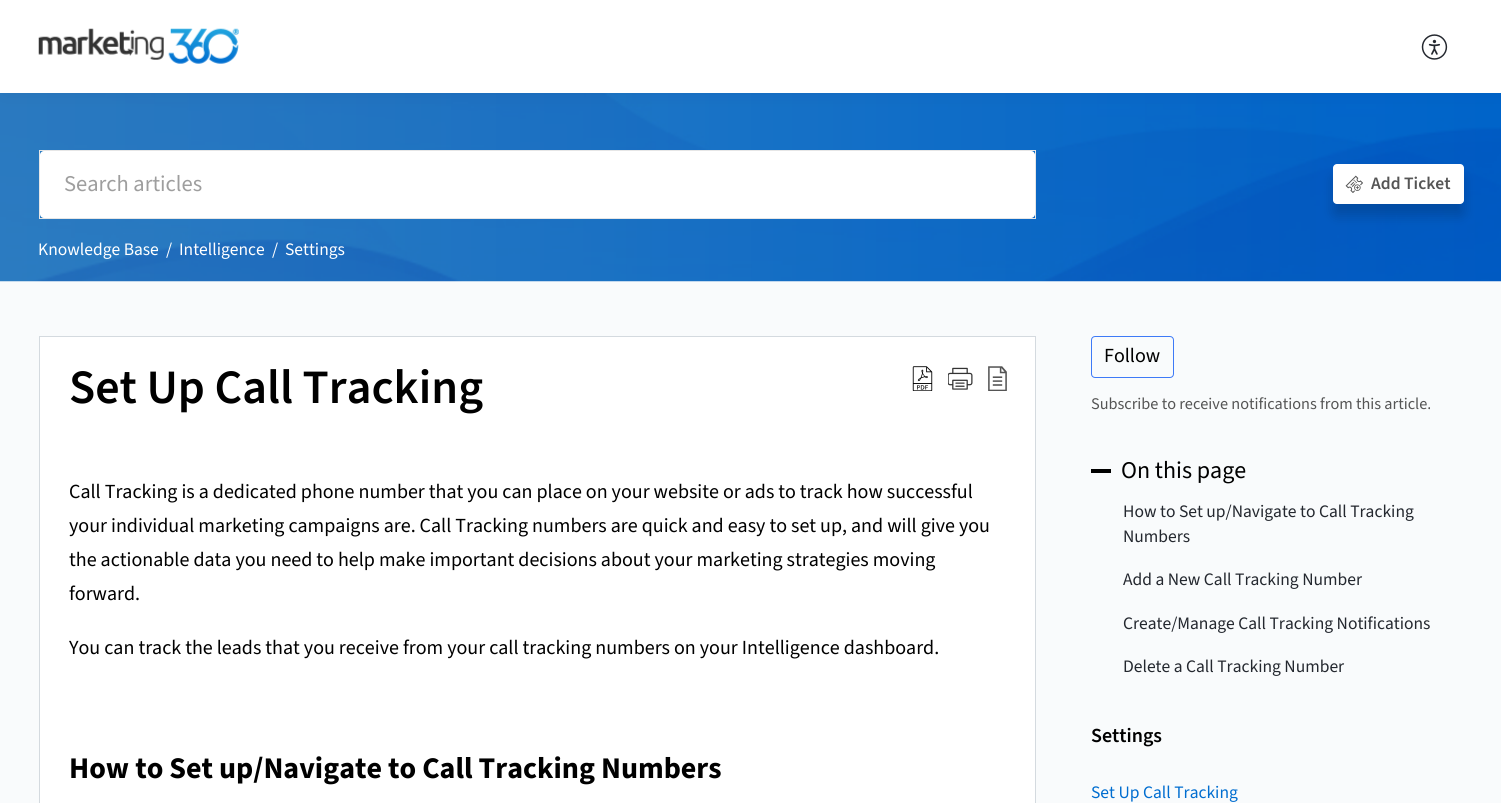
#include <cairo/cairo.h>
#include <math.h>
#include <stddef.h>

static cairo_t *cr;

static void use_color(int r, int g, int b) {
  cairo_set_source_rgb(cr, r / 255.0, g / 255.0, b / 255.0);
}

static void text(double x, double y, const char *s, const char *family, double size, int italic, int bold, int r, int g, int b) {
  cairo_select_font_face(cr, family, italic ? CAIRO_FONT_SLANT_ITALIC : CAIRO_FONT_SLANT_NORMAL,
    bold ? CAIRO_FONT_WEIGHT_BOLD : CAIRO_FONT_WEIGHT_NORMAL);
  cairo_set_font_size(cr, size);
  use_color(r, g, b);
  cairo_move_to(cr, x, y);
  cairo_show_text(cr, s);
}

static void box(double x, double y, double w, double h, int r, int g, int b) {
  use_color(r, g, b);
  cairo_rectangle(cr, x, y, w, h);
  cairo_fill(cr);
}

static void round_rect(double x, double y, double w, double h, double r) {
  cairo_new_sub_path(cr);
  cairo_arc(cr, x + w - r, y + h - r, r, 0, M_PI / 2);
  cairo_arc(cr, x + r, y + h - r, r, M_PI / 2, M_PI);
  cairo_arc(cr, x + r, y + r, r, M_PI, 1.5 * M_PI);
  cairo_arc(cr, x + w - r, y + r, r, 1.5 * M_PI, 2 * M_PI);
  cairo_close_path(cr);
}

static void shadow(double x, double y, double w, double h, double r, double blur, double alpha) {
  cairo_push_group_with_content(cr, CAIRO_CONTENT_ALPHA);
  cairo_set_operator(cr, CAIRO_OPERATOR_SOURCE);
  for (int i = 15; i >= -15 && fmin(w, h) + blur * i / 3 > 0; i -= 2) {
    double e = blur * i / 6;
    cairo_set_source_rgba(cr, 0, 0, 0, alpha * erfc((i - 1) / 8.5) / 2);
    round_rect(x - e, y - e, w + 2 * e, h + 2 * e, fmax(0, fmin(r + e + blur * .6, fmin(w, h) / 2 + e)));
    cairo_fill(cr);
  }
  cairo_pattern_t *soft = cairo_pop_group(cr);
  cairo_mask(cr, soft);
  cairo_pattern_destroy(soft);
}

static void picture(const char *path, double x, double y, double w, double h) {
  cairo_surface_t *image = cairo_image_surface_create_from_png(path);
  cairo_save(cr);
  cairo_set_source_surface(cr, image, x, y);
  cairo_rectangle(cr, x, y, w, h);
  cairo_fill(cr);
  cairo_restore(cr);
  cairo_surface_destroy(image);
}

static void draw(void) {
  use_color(249, 251, 252);
  cairo_paint(cr);
  picture("img_03.png", 0, 93, 1501, 189);
  use_color(0, 0, 0);
  shadow(4, 0, 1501, 93, 0, 9.5, 0.05);
  box(0, 0, 1501, 93, 255, 255, 255);
  picture("img_01.png", 38, 28, 201, 36);
  picture("img_02.png", 1421, 34, 27, 26);
  cairo_rectangle(cr, 39.5, 150.5, 996, 68);
  use_color(230, 230, 230);
  cairo_set_line_width(cr, 1);
  cairo_stroke(cr);
  use_color(255, 255, 255);
  round_rect(40, 151, 995, 67, 4);
  cairo_fill(cr);
  use_color(0, 0, 0);
  shadow(1333, 176, 131, 40, 4, 6, 0.16);
  use_color(255, 255, 255);
  round_rect(1333, 164, 131, 40, 4);
  cairo_fill(cr);
  picture("img_04.png", 1345, 175, 18, 18);
  cairo_rectangle(cr, 39.5, 336.5, 996, 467);
  cairo_fill_preserve(cr);
  use_color(212, 218, 223);
  cairo_stroke(cr);
  picture("img_05.png", 912, 366, 21, 25);
  picture("img_06.png", 948, 367, 25, 23);
  picture("img_07.png", 988, 366, 19, 25);
  round_rect(1091.5, 336.5, 82, 41, 3.5);
  use_color(62, 122, 247);
  cairo_stroke(cr);
  box(1091, 469, 20, 4, 0, 0, 0);
  text(64, 191, "Search articles", "Source Sans 3", 22.5, 0, 0, 158, 158, 158);
  text(1371, 189, "Add Ticket", "Source Sans 3 SemiBold", 17.5, 0, 0, 85, 85, 85);
  text(38, 255, "Knowledge Base", "Source Sans 3", 17.5, 0, 0, 255, 255, 255);
  text(166, 255, "/", "Source Sans 3", 17.5, 0, 0, 255, 255, 255);
  text(179, 255, "Intelligence", "Source Sans 3", 17.5, 0, 0, 255, 255, 255);
  text(272, 255, "/", "Source Sans 3", 17.5, 0, 0, 255, 255, 255);
  text(285, 255, "Settings", "Source Sans 3", 17.5, 0, 0, 255, 255, 255);
  text(69, 403, "Set Up Call Tracking", "Source Sans 3 SemiBold", 48, 0, 0, 0, 0, 0);
  text(69, 498, "Call Tracking is a dedicated phone number that you can place on your website or ads to track how successful", "Source Sans 3", 20, 0, 0, 0, 0, 0);
  text(69, 532, "your individual marketing campaigns are. Call Tracking numbers are quick and easy to set up, and will give you", "Source Sans 3", 20, 0, 0, 0, 0, 0);
  text(69, 566, "the actionable data you need to help make important decisions about your marketing strategies moving", "Source Sans 3", 20, 0, 0, 0, 0, 0);
  text(69, 600, "forward.", "Source Sans 3", 20, 0, 0, 0, 0, 0);
  text(69, 654, "You can track the leads that you receive from your call tracking numbers on your Intelligence dashboard.", "Source Sans 3", 20, 0, 0, 0, 0, 0);
  text(69, 778, "How to Set up/Navigate to Call Tracking Numbers", "Source Sans 3", 30, 0, 1, 0, 0, 0);
  text(1104, 362, "Follow", "Source Sans 3", 20, 0, 0, 0, 0, 0);
  text(1091, 409, "Subscribe to receive notifications from this article.", "Source Sans 3", 16.25, 0, 0, 85, 85, 85);
  text(1121, 478, "On this page", "Source Sans 3", 24, 0, 0, 0, 0, 0);
  text(1123, 517, "How to Set up/Navigate to Call Tracking", "Source Sans 3", 17.5, 0, 0, 36, 40, 47);
  text(1123, 542, "Numbers", "Source Sans 3", 17.5, 0, 0, 36, 40, 47);
  text(1123, 585, "Add a New Call Tracking Number", "Source Sans 3", 17.5, 0, 0, 36, 40, 47);
  text(1123, 629, "Create/Manage Call Tracking Notifications", "Source Sans 3", 17.5, 0, 0, 36, 40, 47);
  text(1123, 672, "Delete a Call Tracking Number", "Source Sans 3", 17.5, 0, 0, 36, 40, 47);
  text(1091, 742, "Settings", "Source Sans 3 SemiBold", 20, 0, 0, 0, 0, 0);
  text(1091, 798, "Set Up Call Tracking", "Source Sans 3", 17.5, 0, 0, 0, 109, 208);
}

int main(void) {
  cairo_surface_t *surface = cairo_image_surface_create(CAIRO_FORMAT_RGB24, 1501, 803);
  cr = cairo_create(surface);
  cairo_font_options_t *options = cairo_font_options_create();
  cairo_font_options_set_hint_metrics(options, CAIRO_HINT_METRICS_OFF);
  cairo_font_options_set_hint_style(options, CAIRO_HINT_STYLE_NONE);
  cairo_set_font_options(cr, options);
  cairo_set_miter_limit(cr, 4);
  draw();
  cairo_surface_write_to_png(surface, "out.png");
  cairo_font_options_destroy(options);
  cairo_destroy(cr);
  cairo_surface_destroy(surface);
  return 0;
}
